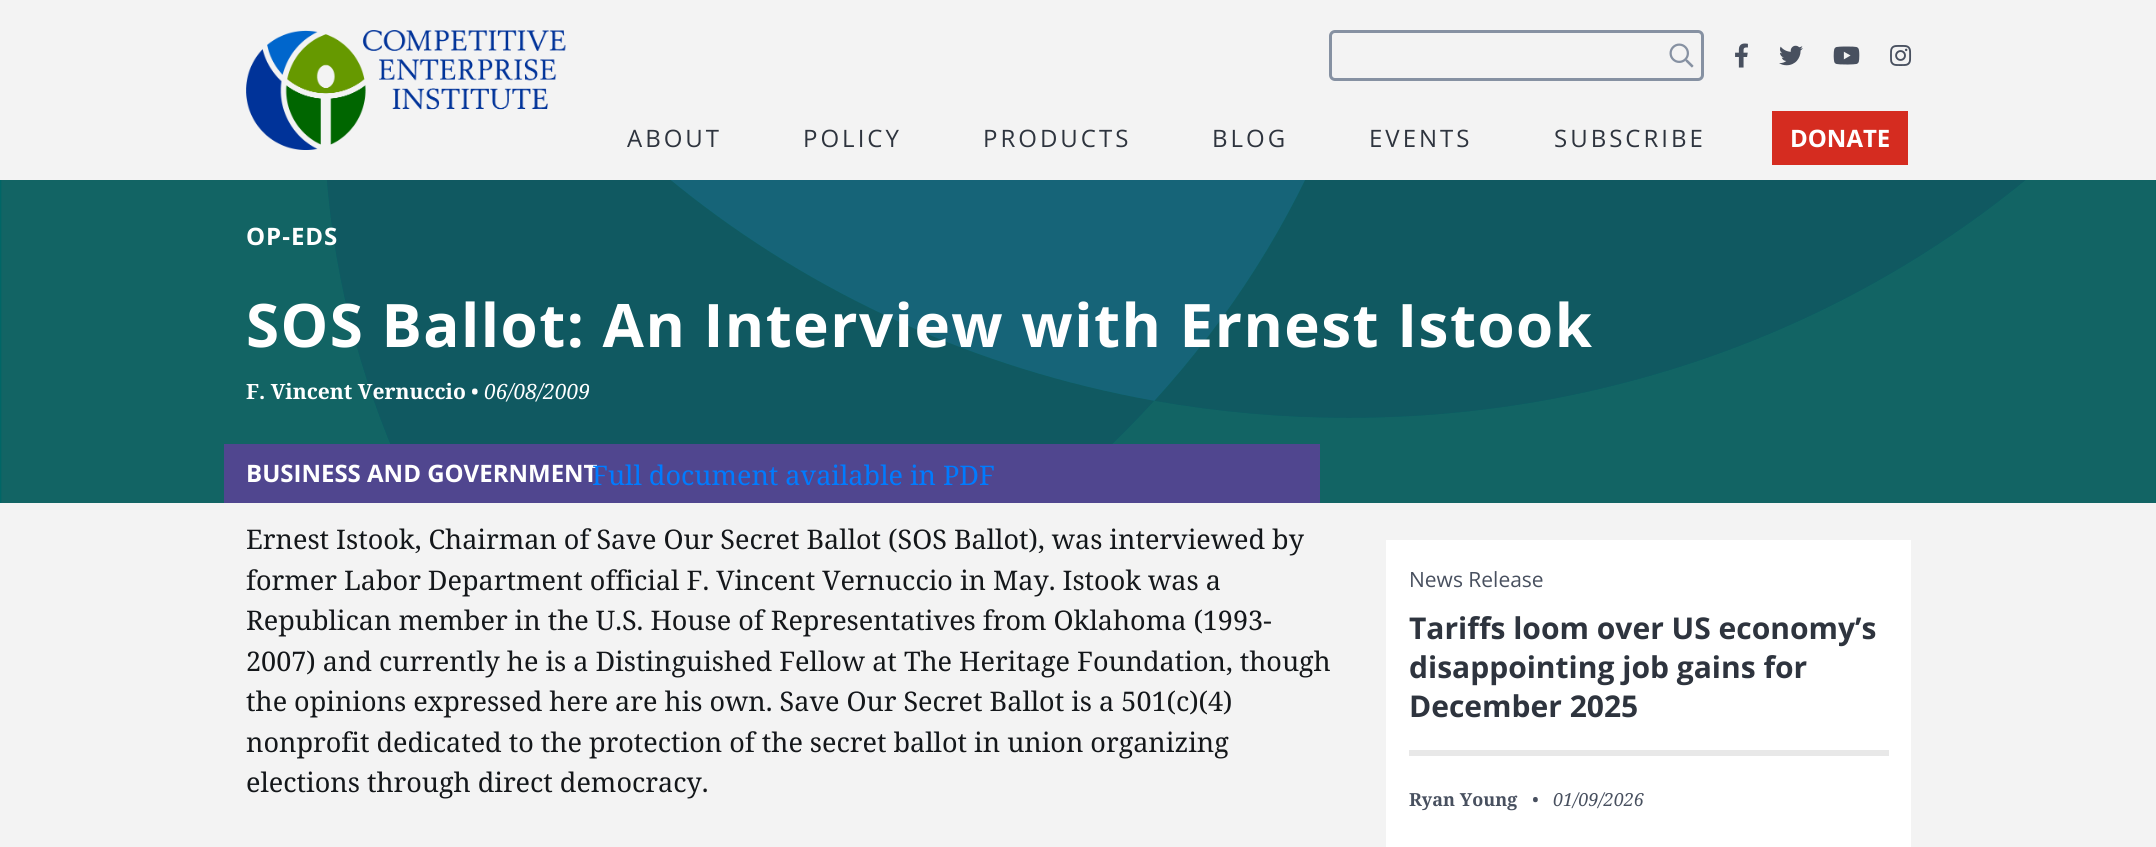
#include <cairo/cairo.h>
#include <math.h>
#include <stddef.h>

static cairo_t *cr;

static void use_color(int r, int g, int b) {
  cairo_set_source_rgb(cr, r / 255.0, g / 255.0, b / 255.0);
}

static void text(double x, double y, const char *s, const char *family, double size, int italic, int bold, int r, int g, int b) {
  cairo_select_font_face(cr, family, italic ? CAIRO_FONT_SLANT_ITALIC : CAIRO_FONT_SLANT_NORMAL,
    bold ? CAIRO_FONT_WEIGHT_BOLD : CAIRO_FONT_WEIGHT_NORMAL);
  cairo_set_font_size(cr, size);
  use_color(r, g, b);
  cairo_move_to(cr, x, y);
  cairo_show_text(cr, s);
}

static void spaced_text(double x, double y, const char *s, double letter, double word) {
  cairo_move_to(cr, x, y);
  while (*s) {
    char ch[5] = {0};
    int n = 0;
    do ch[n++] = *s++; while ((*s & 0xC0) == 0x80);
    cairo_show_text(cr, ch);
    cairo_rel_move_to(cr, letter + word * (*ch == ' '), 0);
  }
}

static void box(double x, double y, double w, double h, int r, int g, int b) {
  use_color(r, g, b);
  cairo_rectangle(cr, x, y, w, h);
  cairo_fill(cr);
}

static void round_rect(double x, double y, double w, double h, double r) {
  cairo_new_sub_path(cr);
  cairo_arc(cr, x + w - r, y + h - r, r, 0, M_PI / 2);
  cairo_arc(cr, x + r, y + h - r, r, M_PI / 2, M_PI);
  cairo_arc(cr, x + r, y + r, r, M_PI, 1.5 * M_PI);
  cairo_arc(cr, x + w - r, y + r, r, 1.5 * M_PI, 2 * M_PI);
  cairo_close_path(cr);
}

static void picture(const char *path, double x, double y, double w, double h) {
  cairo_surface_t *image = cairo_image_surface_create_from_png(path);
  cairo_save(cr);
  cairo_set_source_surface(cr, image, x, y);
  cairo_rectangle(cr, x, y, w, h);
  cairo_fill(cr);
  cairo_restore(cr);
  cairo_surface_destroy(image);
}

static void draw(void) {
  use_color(243, 243, 243);
  cairo_paint(cr);
  picture("img_01.png", 246, 30, 320, 120);
  round_rect(1330.5, 31.5, 372, 48, 4.5);
  use_color(134, 145, 162);
  cairo_set_line_width(cr, 3);
  cairo_stroke(cr);
  picture("img_02.png", 1669, 43, 25, 25);
  picture("img_03.png", 1735, 43, 13, 25);
  picture("img_04.png", 1779, 45, 24, 21);
  picture("img_05.png", 1833, 46, 27, 19);
  picture("img_06.png", 1890, 45, 22, 21);
  box(1772, 111, 136, 54, 213, 44, 32);
  box(0, 180, 2156, 323, 0, 102, 102);
  picture("img_07.png", 1, 180, 2155, 323);
  box(224, 444, 1096, 59, 80, 70, 143);
  box(1386, 540, 525, 307, 255, 255, 255);
  box(1409, 750, 480, 6, 232, 232, 232);
  cairo_select_font_face(cr, "Open Sans", CAIRO_FONT_SLANT_NORMAL, CAIRO_FONT_WEIGHT_NORMAL);
  cairo_set_font_size(cr, 24);
  use_color(46, 52, 62);
  spaced_text(627, 147, "ABOUT", 3, 0);
  spaced_text(803, 147, "POLICY", 3, 0);
  spaced_text(983, 147, "PRODUCTS", 3, 0);
  spaced_text(1212, 147, "BLOG", 3, 0);
  spaced_text(1369, 147, "EVENTS", 3, 0);
  spaced_text(1554, 147, "SUBSCRIBE", 3, 0);
  text(1790, 147, "DONATE", "Open Sans", 24, 0, 1, 255, 255, 255);
  spaced_text(246, 245, "OP-EDS", 1, 0);
  text(246, 399, "F. Vincent Vernuccio", "Noto Serif", 21, 0, 1, 255, 255, 255);
  text(471, 399, "•", "Noto Serif", 21, 0, 0, 255, 255, 255);
  text(484, 399, "06/08/2009", "Noto Serif", 21, 1, 0, 255, 255, 255);
  text(246, 482, "BUSINESS AND GOVERNMENT", "Open Sans", 24, 0, 1, 255, 255, 255);
  cairo_set_font_size(cr, 60);
  spaced_text(246, 347, "SOS Ballot: An Interview with Ernest Istook", 1.5, 0);
  text(592, 485, "Full document available in PDF", "Noto Serif", 27, 0, 0, 0, 123, 255);
  text(246, 549, "Ernest Istook, Chairman of Save Our Secret Ballot (SOS Ballot), was interviewed by", "Noto Serif", 27, 0, 0, 20, 23, 26);
  text(246, 590, "former Labor Department official F. Vincent Vernuccio in May. Istook was a", "Noto Serif", 27, 0, 0, 20, 23, 26);
  text(246, 630, "Republican member in the U.S. House of Representatives from Oklahoma (1993-", "Noto Serif", 27, 0, 0, 20, 23, 26);
  text(246, 671, "2007) and currently he is a Distinguished Fellow at The Heritage Foundation, though", "Noto Serif", 27, 0, 0, 20, 23, 26);
  text(246, 711, "the opinions expressed here are his own. Save Our Secret Ballot is a 501(c)(4)", "Noto Serif", 27, 0, 0, 20, 23, 26);
  text(246, 752, "nonprofit dedicated to the protection of the secret ballot in union organizing", "Noto Serif", 27, 0, 0, 20, 23, 26);
  text(246, 792, "elections through direct democracy.", "Noto Serif", 27, 0, 0, 20, 23, 26);
  text(1409, 587, "News Release", "Open Sans", 21, 0, 0, 72, 80, 95);
  text(1409, 639, "Tariffs loom over US economy’s", "Open Sans", 30, 0, 1, 46, 52, 62);
  text(1409, 678, "disappointing job gains for", "Open Sans", 30, 0, 1, 46, 52, 62);
  text(1409, 717, "December 2025", "Open Sans", 30, 0, 1, 46, 52, 62);
  text(1409, 806, "Ryan Young", "Noto Serif", 18, 0, 1, 72, 80, 95);
  text(1532, 806, "•", "Noto Serif", 18, 1, 0, 72, 80, 95);
  text(1553, 806, "01/09/2026", "Noto Serif", 18, 1, 0, 72, 80, 95);
}

int main(void) {
  cairo_surface_t *surface = cairo_image_surface_create(CAIRO_FORMAT_RGB24, 2156, 847);
  cr = cairo_create(surface);
  cairo_font_options_t *options = cairo_font_options_create();
  cairo_font_options_set_hint_metrics(options, CAIRO_HINT_METRICS_OFF);
  cairo_font_options_set_hint_style(options, CAIRO_HINT_STYLE_NONE);
  cairo_set_font_options(cr, options);
  cairo_set_miter_limit(cr, 4);
  draw();
  cairo_surface_write_to_png(surface, "out.png");
  cairo_font_options_destroy(options);
  cairo_destroy(cr);
  cairo_surface_destroy(surface);
  return 0;
}
